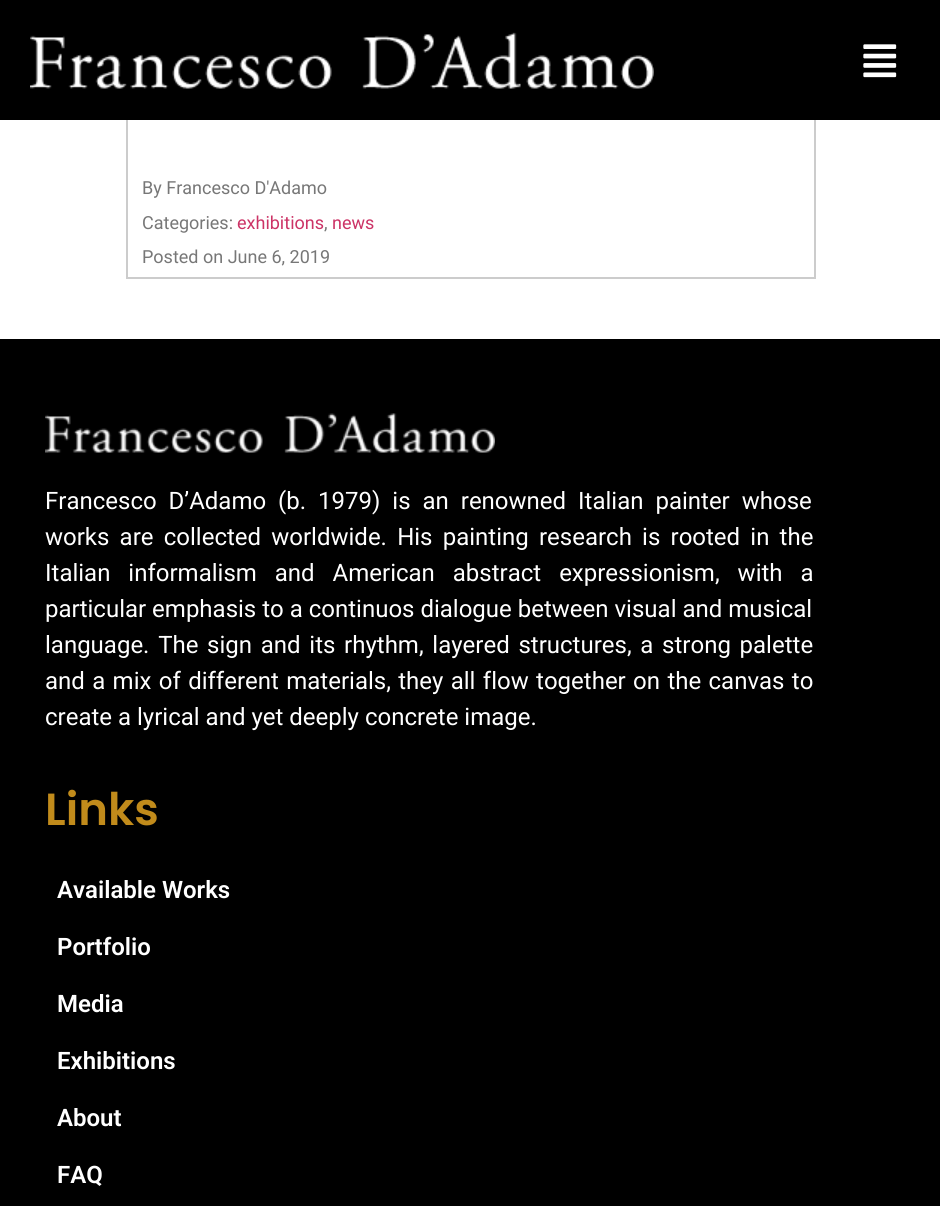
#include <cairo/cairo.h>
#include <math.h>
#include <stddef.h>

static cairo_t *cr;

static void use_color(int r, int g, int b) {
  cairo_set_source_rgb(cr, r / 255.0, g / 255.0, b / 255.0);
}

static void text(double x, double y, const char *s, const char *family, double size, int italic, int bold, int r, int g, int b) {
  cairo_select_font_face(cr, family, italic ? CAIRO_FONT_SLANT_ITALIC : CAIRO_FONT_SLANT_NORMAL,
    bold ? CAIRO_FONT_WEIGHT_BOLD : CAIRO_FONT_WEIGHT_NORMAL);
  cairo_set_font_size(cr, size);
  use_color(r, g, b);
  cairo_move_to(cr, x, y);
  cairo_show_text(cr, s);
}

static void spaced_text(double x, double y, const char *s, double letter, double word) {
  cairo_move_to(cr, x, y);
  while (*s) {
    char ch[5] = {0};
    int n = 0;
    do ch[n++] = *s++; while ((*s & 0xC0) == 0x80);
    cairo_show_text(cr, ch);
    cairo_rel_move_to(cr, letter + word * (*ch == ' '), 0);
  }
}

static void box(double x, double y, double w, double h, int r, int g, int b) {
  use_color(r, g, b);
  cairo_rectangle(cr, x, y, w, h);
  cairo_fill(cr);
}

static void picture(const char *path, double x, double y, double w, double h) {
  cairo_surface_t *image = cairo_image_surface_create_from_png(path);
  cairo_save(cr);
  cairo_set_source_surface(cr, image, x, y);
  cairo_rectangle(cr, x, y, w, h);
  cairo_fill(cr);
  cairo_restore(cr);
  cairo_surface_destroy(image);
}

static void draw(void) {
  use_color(255, 255, 255);
  cairo_paint(cr);
  cairo_rectangle(cr, 127, -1, 688, 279);
  use_color(204, 204, 204);
  cairo_stroke(cr);
  box(0, 0, 940, 120, 0, 0, 0);
  picture("img_01.png", 30, 32, 624, 57);
  picture("img_02.png", 863, 44, 34, 34);
  box(0, 339, 940, 867, 0, 0, 0);
  picture("img_03.png", 45, 413, 450, 40);
  text(142, 194, "By Francesco D'Adamo", "Roboto", 18, 0, 0, 119, 119, 119);
  text(142, 229, "Categories:", "Roboto", 18, 0, 0, 119, 119, 119);
  text(237, 229, "exhibitions", "Roboto", 18, 0, 0, 204, 51, 102);
  text(324, 229, ",", "Roboto", 18, 0, 0, 119, 119, 119);
  text(332, 229, "news", "Roboto", 18, 0, 0, 204, 51, 102);
  text(142, 263, "Posted on June 6, 2019", "Roboto", 18, 0, 0, 119, 119, 119);
  cairo_set_font_size(cr, 24);
  use_color(255, 255, 255);
  spaced_text(45, 509, "Francesco D’Adamo (b. 1979) is an renowned Italian painter whose", 0, 6);
  spaced_text(45, 545, "works are collected worldwide. His painting research is rooted in the", 0, 4.25);
  spaced_text(45, 581, "Italian informalism and American abstract expressionism, with a", 0, 12);
  text(45, 617, "particular emphasis to a continuos dialogue between visual and musical", "Roboto", 24, 0, 0, 255, 255, 255);
  spaced_text(45, 653, "language. The sign and its rhythm, layered structures, a strong palette", 0, 2.75);
  spaced_text(45, 689, "and a mix of different materials, they all flow together on the canvas to", 0, 1.4);
  text(45, 725, "create a lyrical and yet deeply concrete image.", "Roboto", 24, 0, 0, 255, 255, 255);
  text(45, 825, "Links", "Poppins SemiBold", 45, 0, 0, 193, 139, 27);
  text(57, 898, "Available Works", "Roboto SemiBold", 24, 0, 0, 255, 255, 255);
  text(57, 955, "Portfolio", "Roboto SemiBold", 24, 0, 0, 255, 255, 255);
  text(57, 1012, "Media", "Roboto SemiBold", 24, 0, 0, 255, 255, 255);
  text(57, 1069, "Exhibitions", "Roboto SemiBold", 24, 0, 0, 255, 255, 255);
  text(57, 1126, "About", "Roboto SemiBold", 24, 0, 0, 255, 255, 255);
  text(57, 1183, "FAQ", "Roboto SemiBold", 24, 0, 0, 255, 255, 255);
}

int main(void) {
  cairo_surface_t *surface = cairo_image_surface_create(CAIRO_FORMAT_RGB24, 940, 1206);
  cr = cairo_create(surface);
  cairo_font_options_t *options = cairo_font_options_create();
  cairo_font_options_set_hint_metrics(options, CAIRO_HINT_METRICS_OFF);
  cairo_font_options_set_hint_style(options, CAIRO_HINT_STYLE_NONE);
  cairo_set_font_options(cr, options);
  cairo_set_miter_limit(cr, 4);
  draw();
  cairo_surface_write_to_png(surface, "out.png");
  cairo_font_options_destroy(options);
  cairo_destroy(cr);
  cairo_surface_destroy(surface);
  return 0;
}
